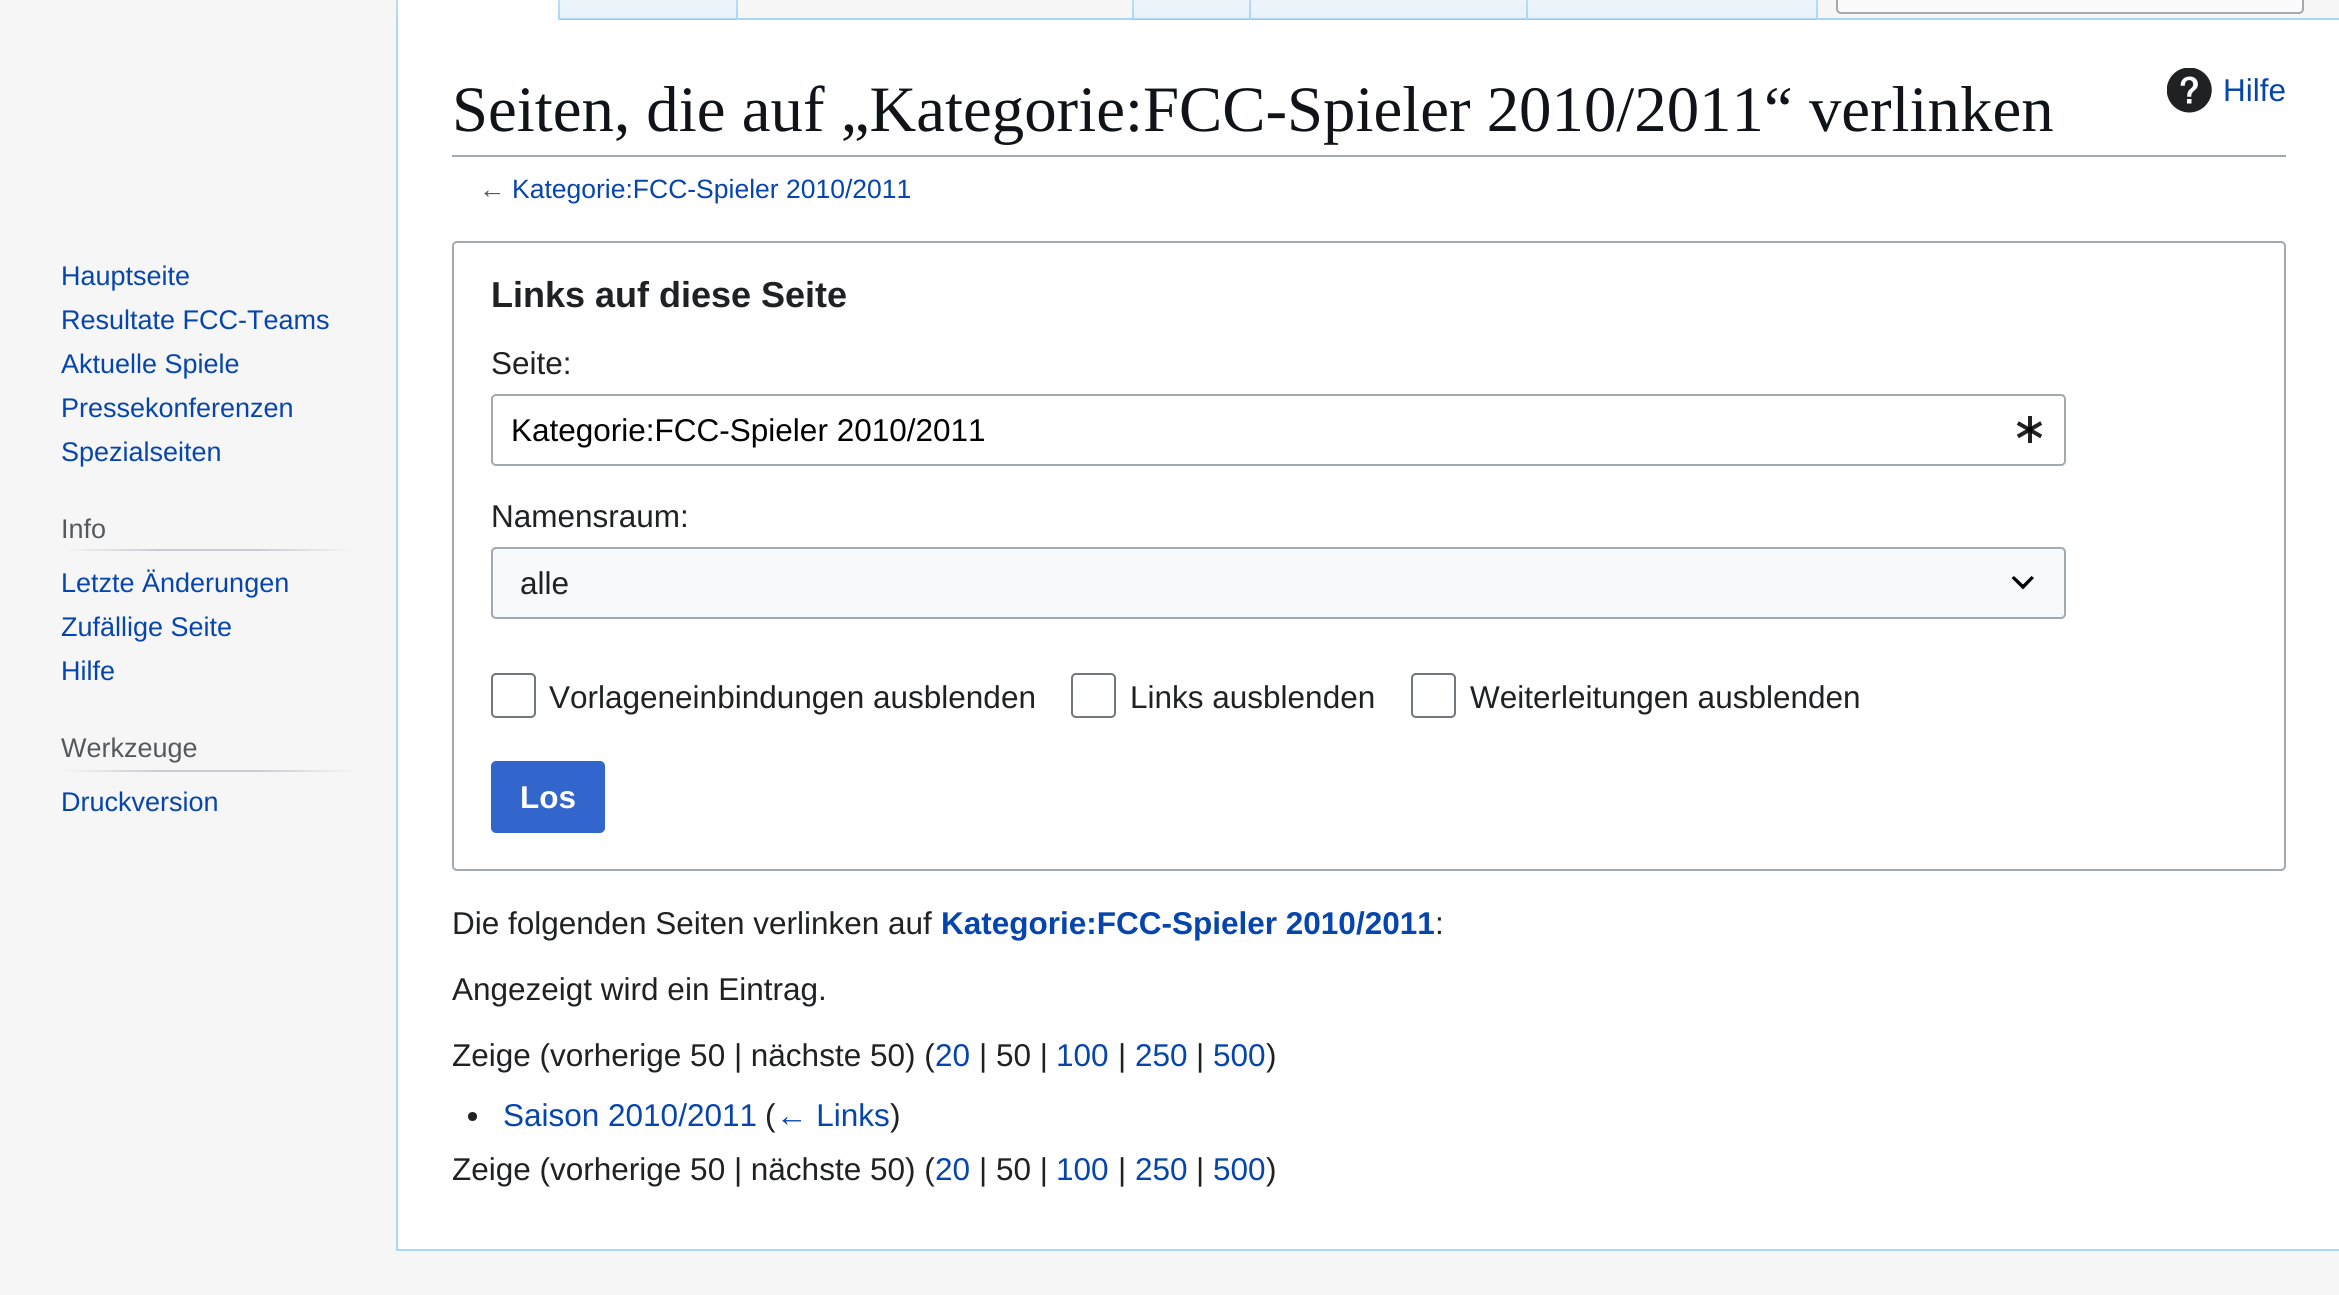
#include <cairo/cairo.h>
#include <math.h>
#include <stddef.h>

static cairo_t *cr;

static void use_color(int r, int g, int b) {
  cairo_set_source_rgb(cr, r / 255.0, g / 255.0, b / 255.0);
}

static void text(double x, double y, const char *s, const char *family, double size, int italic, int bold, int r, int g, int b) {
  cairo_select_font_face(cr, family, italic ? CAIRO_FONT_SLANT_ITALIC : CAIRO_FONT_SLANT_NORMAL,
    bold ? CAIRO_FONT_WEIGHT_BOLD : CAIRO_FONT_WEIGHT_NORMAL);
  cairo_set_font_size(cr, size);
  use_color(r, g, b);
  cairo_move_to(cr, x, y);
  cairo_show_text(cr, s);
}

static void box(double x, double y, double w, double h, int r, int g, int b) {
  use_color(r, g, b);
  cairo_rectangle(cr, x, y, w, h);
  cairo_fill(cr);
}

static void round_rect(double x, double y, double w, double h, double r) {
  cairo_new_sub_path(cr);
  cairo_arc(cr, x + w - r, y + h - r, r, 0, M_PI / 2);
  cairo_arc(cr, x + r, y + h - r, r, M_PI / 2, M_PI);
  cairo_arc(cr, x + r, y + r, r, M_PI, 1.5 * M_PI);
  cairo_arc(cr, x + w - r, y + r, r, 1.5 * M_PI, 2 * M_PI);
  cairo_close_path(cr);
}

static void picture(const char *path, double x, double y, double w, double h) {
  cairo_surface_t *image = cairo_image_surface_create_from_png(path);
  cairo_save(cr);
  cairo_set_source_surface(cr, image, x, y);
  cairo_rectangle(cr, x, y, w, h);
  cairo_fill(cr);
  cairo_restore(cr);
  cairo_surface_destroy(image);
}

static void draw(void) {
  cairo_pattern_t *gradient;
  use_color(246, 246, 246);
  cairo_paint(cr);
  box(396, 1249, 1943, 2, 167, 215, 249);
  box(396, 18, 2, 1233, 167, 215, 249);
  gradient = cairo_pattern_create_linear(397, -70, 397, 20);
  cairo_pattern_add_color_stop_rgba(gradient, 0, 0.655, 0.843, 0.976, 0);
  cairo_pattern_add_color_stop_rgba(gradient, 1, 0.655, 0.843, 0.976, 1);
  cairo_set_source(cr, gradient);
  cairo_pattern_destroy(gradient);
  cairo_rectangle(cr, 396, 0, 2, 20);
  cairo_fill(cr);
  box(398, 0, 160, 20, 255, 255, 255);
  gradient = cairo_pattern_create_linear(559, -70, 559, 20);
  cairo_pattern_add_color_stop_rgba(gradient, 0, 1, 1, 1, 1);
  cairo_pattern_add_color_stop_rgba(gradient, 1, 0.655, 0.843, 0.976, 1);
  cairo_set_source(cr, gradient);
  cairo_pattern_destroy(gradient);
  cairo_rectangle(cr, 558, 0, 2, 20);
  cairo_fill(cr);
  gradient = cairo_pattern_create_linear(649, 20, 649, -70);
  cairo_pattern_add_color_stop_rgba(gradient, 0, 0.467, 0.757, 0.965, 1);
  cairo_pattern_add_color_stop_rgba(gradient, 0.03, 0.91, 0.949, 0.973, 1);
  cairo_pattern_add_color_stop_rgba(gradient, 1, 1, 1, 1, 1);
  cairo_set_source(cr, gradient);
  cairo_pattern_destroy(gradient);
  cairo_rectangle(cr, 560, 0, 178, 20);
  cairo_fill(cr);
  gradient = cairo_pattern_create_linear(737, -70, 737, 20);
  cairo_pattern_add_color_stop_rgba(gradient, 0, 0.655, 0.843, 0.976, 0);
  cairo_pattern_add_color_stop_rgba(gradient, 1, 0.655, 0.843, 0.976, 1);
  cairo_set_source(cr, gradient);
  cairo_pattern_destroy(gradient);
  cairo_rectangle(cr, 736, 0, 2, 20);
  cairo_fill(cr);
  box(738, 18, 1601, 2, 167, 215, 249);
  gradient = cairo_pattern_create_linear(1133, -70, 1133, 20);
  cairo_pattern_add_color_stop_rgba(gradient, 0, 0.655, 0.843, 0.976, 0);
  cairo_pattern_add_color_stop_rgba(gradient, 1, 0.655, 0.843, 0.976, 1);
  cairo_set_source(cr, gradient);
  cairo_pattern_destroy(gradient);
  cairo_rectangle(cr, 1132, 0, 2, 20);
  cairo_fill(cr);
  gradient = cairo_pattern_create_linear(1193, 20, 1193, -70);
  cairo_pattern_add_color_stop_rgba(gradient, 0, 0.467, 0.757, 0.965, 1);
  cairo_pattern_add_color_stop_rgba(gradient, 0.03, 0.91, 0.949, 0.973, 1);
  cairo_pattern_add_color_stop_rgba(gradient, 1, 1, 1, 1, 1);
  cairo_set_source(cr, gradient);
  cairo_pattern_destroy(gradient);
  cairo_rectangle(cr, 1134, 0, 117, 20);
  cairo_fill(cr);
  gradient = cairo_pattern_create_linear(1250, -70, 1250, 20);
  cairo_pattern_add_color_stop_rgba(gradient, 0, 0.655, 0.843, 0.976, 0);
  cairo_pattern_add_color_stop_rgba(gradient, 1, 0.655, 0.843, 0.976, 1);
  cairo_set_source(cr, gradient);
  cairo_pattern_destroy(gradient);
  cairo_rectangle(cr, 1249, 0, 2, 20);
  cairo_fill(cr);
  gradient = cairo_pattern_create_linear(1389, 20, 1389, -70);
  cairo_pattern_add_color_stop_rgba(gradient, 0, 0.467, 0.757, 0.965, 1);
  cairo_pattern_add_color_stop_rgba(gradient, 0.03, 0.91, 0.949, 0.973, 1);
  cairo_pattern_add_color_stop_rgba(gradient, 1, 1, 1, 1, 1);
  cairo_set_source(cr, gradient);
  cairo_pattern_destroy(gradient);
  cairo_rectangle(cr, 1251, 0, 277, 20);
  cairo_fill(cr);
  gradient = cairo_pattern_create_linear(1527, -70, 1527, 20);
  cairo_pattern_add_color_stop_rgba(gradient, 0, 0.655, 0.843, 0.976, 0);
  cairo_pattern_add_color_stop_rgba(gradient, 1, 0.655, 0.843, 0.976, 1);
  cairo_set_source(cr, gradient);
  cairo_pattern_destroy(gradient);
  cairo_rectangle(cr, 1526, 0, 2, 20);
  cairo_fill(cr);
  gradient = cairo_pattern_create_linear(1673, 20, 1673, -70);
  cairo_pattern_add_color_stop_rgba(gradient, 0, 0.467, 0.757, 0.965, 1);
  cairo_pattern_add_color_stop_rgba(gradient, 0.03, 0.91, 0.949, 0.973, 1);
  cairo_pattern_add_color_stop_rgba(gradient, 1, 1, 1, 1, 1);
  cairo_set_source(cr, gradient);
  cairo_pattern_destroy(gradient);
  cairo_rectangle(cr, 1528, 0, 290, 20);
  cairo_fill(cr);
  gradient = cairo_pattern_create_linear(1817, -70, 1817, 20);
  cairo_pattern_add_color_stop_rgba(gradient, 0, 0.655, 0.843, 0.976, 0);
  cairo_pattern_add_color_stop_rgba(gradient, 1, 0.655, 0.843, 0.976, 1);
  cairo_set_source(cr, gradient);
  cairo_pattern_destroy(gradient);
  cairo_rectangle(cr, 1816, 0, 2, 20);
  cairo_fill(cr);
  use_color(251, 251, 251);
  round_rect(1837, -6, 466, 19, 4);
  cairo_fill_preserve(cr);
  use_color(162, 169, 177);
  cairo_stroke(cr);
  gradient = cairo_pattern_create_linear(61, 550, 356, 550);
  cairo_pattern_add_color_stop_rgba(gradient, 0, 0.965, 0.965, 0.965, 1);
  cairo_pattern_add_color_stop_rgba(gradient, 0.33, 0.784, 0.8, 0.82, 1);
  cairo_pattern_add_color_stop_rgba(gradient, 0.66, 0.784, 0.8, 0.82, 1);
  cairo_pattern_add_color_stop_rgba(gradient, 1, 0.965, 0.965, 0.965, 1);
  cairo_set_source(cr, gradient);
  cairo_pattern_destroy(gradient);
  cairo_rectangle(cr, 61, 549, 295, 2);
  cairo_fill(cr);
  gradient = cairo_pattern_create_linear(61, 771, 356, 771);
  cairo_pattern_add_color_stop_rgba(gradient, 0, 0.965, 0.965, 0.965, 1);
  cairo_pattern_add_color_stop_rgba(gradient, 0.33, 0.784, 0.8, 0.82, 1);
  cairo_pattern_add_color_stop_rgba(gradient, 0.66, 0.784, 0.8, 0.82, 1);
  cairo_pattern_add_color_stop_rgba(gradient, 1, 0.965, 0.965, 0.965, 1);
  cairo_set_source(cr, gradient);
  cairo_pattern_destroy(gradient);
  cairo_rectangle(cr, 61, 770, 295, 2);
  cairo_fill(cr);
  box(398, 20, 1941, 1229, 255, 255, 255);
  box(452, 155, 1834, 2, 162, 169, 177);
  picture("img_01.png", 2167, 68, 45, 45);
  round_rect(453, 242, 1832, 628, 4);
  cairo_stroke(cr);
  round_rect(492, 395, 1573, 70, 4);
  cairo_stroke(cr);
  picture("img_02.png", 2016, 416, 27, 27);
  box(491, 547, 1575, 72, 248, 249, 250);
  use_color(0, 0, 0);
  cairo_new_path(cr);
  cairo_move_to(cr, 2031.5, 576);
  cairo_line_to(cr, 2023, 584.5);
  cairo_line_to(cr, 2014, 576);
  cairo_line_to(cr, 2011.5, 578);
  cairo_line_to(cr, 2023, 589.5);
  cairo_line_to(cr, 2034, 578);
  cairo_close_path(cr);
  cairo_fill(cr);
  round_rect(492, 548, 1573, 70, 4);
  use_color(162, 169, 177);
  cairo_stroke(cr);
  round_rect(492, 674, 43, 43, 4);
  use_color(114, 119, 125);
  cairo_stroke(cr);
  round_rect(1072, 674, 43, 43, 4);
  cairo_stroke(cr);
  round_rect(1412, 674, 43, 43, 4);
  cairo_stroke(cr);
  use_color(51, 102, 204);
  round_rect(492, 762, 112, 70, 4);
  cairo_fill_preserve(cr);
  cairo_stroke(cr);
  use_color(32, 33, 34);
  cairo_arc(cr, 472.5, 1116.5, 4.5, 0, 2 * M_PI);
  cairo_fill(cr);
  text(61, 285, "Hauptseite", "Liberation Sans", 27, 0, 0, 6, 69, 173);
  text(61, 329, "Resultate FCC-Teams", "Liberation Sans", 27, 0, 0, 6, 69, 173);
  text(61, 373, "Aktuelle Spiele", "Liberation Sans", 27, 0, 0, 6, 69, 173);
  text(61, 417, "Pressekonferenzen", "Liberation Sans", 27, 0, 0, 6, 69, 173);
  text(61, 461, "Spezialseiten", "Liberation Sans", 27, 0, 0, 6, 69, 173);
  text(61, 538, "Info", "Liberation Sans", 27, 0, 0, 84, 89, 93);
  text(61, 592, "Letzte Änderungen", "Liberation Sans", 27, 0, 0, 6, 69, 173);
  text(61, 636, "Zufällige Seite", "Liberation Sans", 27, 0, 0, 6, 69, 173);
  text(61, 680, "Hilfe", "Liberation Sans", 27, 0, 0, 6, 69, 173);
  text(61, 757, "Werkzeuge", "Liberation Sans", 27, 0, 0, 84, 89, 93);
  text(61, 811, "Druckversion", "Liberation Sans", 27, 0, 0, 6, 69, 173);
  text(452, 131, "Seiten, die auf „Kategorie:FCC-Spieler 2010/2011“ verlinken", "Liberation Serif", 64.8, 0, 0, 16, 20, 24);
  text(2223, 101, "Hilfe", "Liberation Sans", 31.5, 0, 0, 6, 69, 173);
  text(479, 198, "←", "Liberation Sans", 26.5, 0, 0, 84, 89, 93);
  text(512, 198, "Kategorie:FCC-Spieler 2010/2011", "Liberation Sans", 26.5, 0, 0, 6, 69, 173);
  text(491, 307, "Links auf diese Seite", "Liberation Sans", 36, 0, 1, 32, 33, 34);
  text(491, 374, "Seite:", "Liberation Sans", 31.5, 0, 0, 32, 33, 34);
  text(511, 441, "Kategorie:FCC-Spieler 2010/2011", "Liberation Sans", 31.5, 0, 0, 0, 0, 0);
  text(491, 527, "Namensraum:", "Liberation Sans", 31.5, 0, 0, 32, 33, 34);
  text(520, 594, "alle", "Liberation Sans", 31.5, 0, 0, 32, 33, 34);
  text(549, 708, "Vorlageneinbindungen ausblenden", "Liberation Sans", 31.5, 0, 0, 32, 33, 34);
  text(1130, 708, "Links ausblenden", "Liberation Sans", 31.5, 0, 0, 32, 33, 34);
  text(1470, 708, "Weiterleitungen ausblenden", "Liberation Sans", 31.5, 0, 0, 32, 33, 34);
  text(520, 808, "Los", "Liberation Sans", 31.5, 0, 1, 255, 255, 255);
  text(452, 934, "Die folgenden Seiten verlinken auf", "Liberation Sans", 31.5, 0, 0, 32, 33, 34);
  text(941, 934, "Kategorie:FCC-Spieler 2010/2011", "Liberation Sans", 31.5, 0, 1, 6, 69, 173);
  text(1435, 934, ":", "Liberation Sans", 31.5, 0, 0, 32, 33, 34);
  text(452, 1000, "Angezeigt wird ein Eintrag.", "Liberation Sans", 31.5, 0, 0, 32, 33, 34);
  text(452, 1066, "Zeige (vorherige 50 | nächste 50) (", "Liberation Sans", 31.5, 0, 0, 32, 33, 34);
  text(935, 1066, "20", "Liberation Sans", 31.5, 0, 0, 6, 69, 173);
  text(979, 1066, "| 50 |", "Liberation Sans", 31.5, 0, 0, 32, 33, 34);
  text(1056, 1066, "100", "Liberation Sans", 31.5, 0, 0, 6, 69, 173);
  text(1118, 1066, "|", "Liberation Sans", 31.5, 0, 0, 32, 33, 34);
  text(1135, 1066, "250", "Liberation Sans", 31.5, 0, 0, 6, 69, 173);
  text(1196, 1066, "|", "Liberation Sans", 31.5, 0, 0, 32, 33, 34);
  text(1213, 1066, "500", "Liberation Sans", 31.5, 0, 0, 6, 69, 173);
  text(1266, 1066, ")", "Liberation Sans", 31.5, 0, 0, 32, 33, 34);
  text(503, 1126, "Saison 2010/2011", "Liberation Sans", 31.5, 0, 0, 6, 69, 173);
  text(765, 1126, "(", "Liberation Sans", 31.5, 0, 0, 32, 33, 34);
  text(776, 1126, "← Links", "Liberation Sans", 31.5, 0, 0, 6, 69, 173);
  text(890, 1126, ")", "Liberation Sans", 31.5, 0, 0, 32, 33, 34);
  text(452, 1180, "Zeige (vorherige 50 | nächste 50) (", "Liberation Sans", 31.5, 0, 0, 32, 33, 34);
  text(935, 1180, "20", "Liberation Sans", 31.5, 0, 0, 6, 69, 173);
  text(979, 1180, "| 50 |", "Liberation Sans", 31.5, 0, 0, 32, 33, 34);
  text(1056, 1180, "100", "Liberation Sans", 31.5, 0, 0, 6, 69, 173);
  text(1118, 1180, "|", "Liberation Sans", 31.5, 0, 0, 32, 33, 34);
  text(1135, 1180, "250", "Liberation Sans", 31.5, 0, 0, 6, 69, 173);
  text(1196, 1180, "|", "Liberation Sans", 31.5, 0, 0, 32, 33, 34);
  text(1213, 1180, "500", "Liberation Sans", 31.5, 0, 0, 6, 69, 173);
  text(1266, 1180, ")", "Liberation Sans", 31.5, 0, 0, 32, 33, 34);
}

int main(void) {
  cairo_surface_t *surface = cairo_image_surface_create(CAIRO_FORMAT_RGB24, 2339, 1295);
  cr = cairo_create(surface);
  cairo_font_options_t *options = cairo_font_options_create();
  cairo_font_options_set_hint_metrics(options, CAIRO_HINT_METRICS_OFF);
  cairo_font_options_set_hint_style(options, CAIRO_HINT_STYLE_NONE);
  cairo_set_font_options(cr, options);
  cairo_set_miter_limit(cr, 4);
  draw();
  cairo_surface_write_to_png(surface, "out.png");
  cairo_font_options_destroy(options);
  cairo_destroy(cr);
  cairo_surface_destroy(surface);
  return 0;
}
